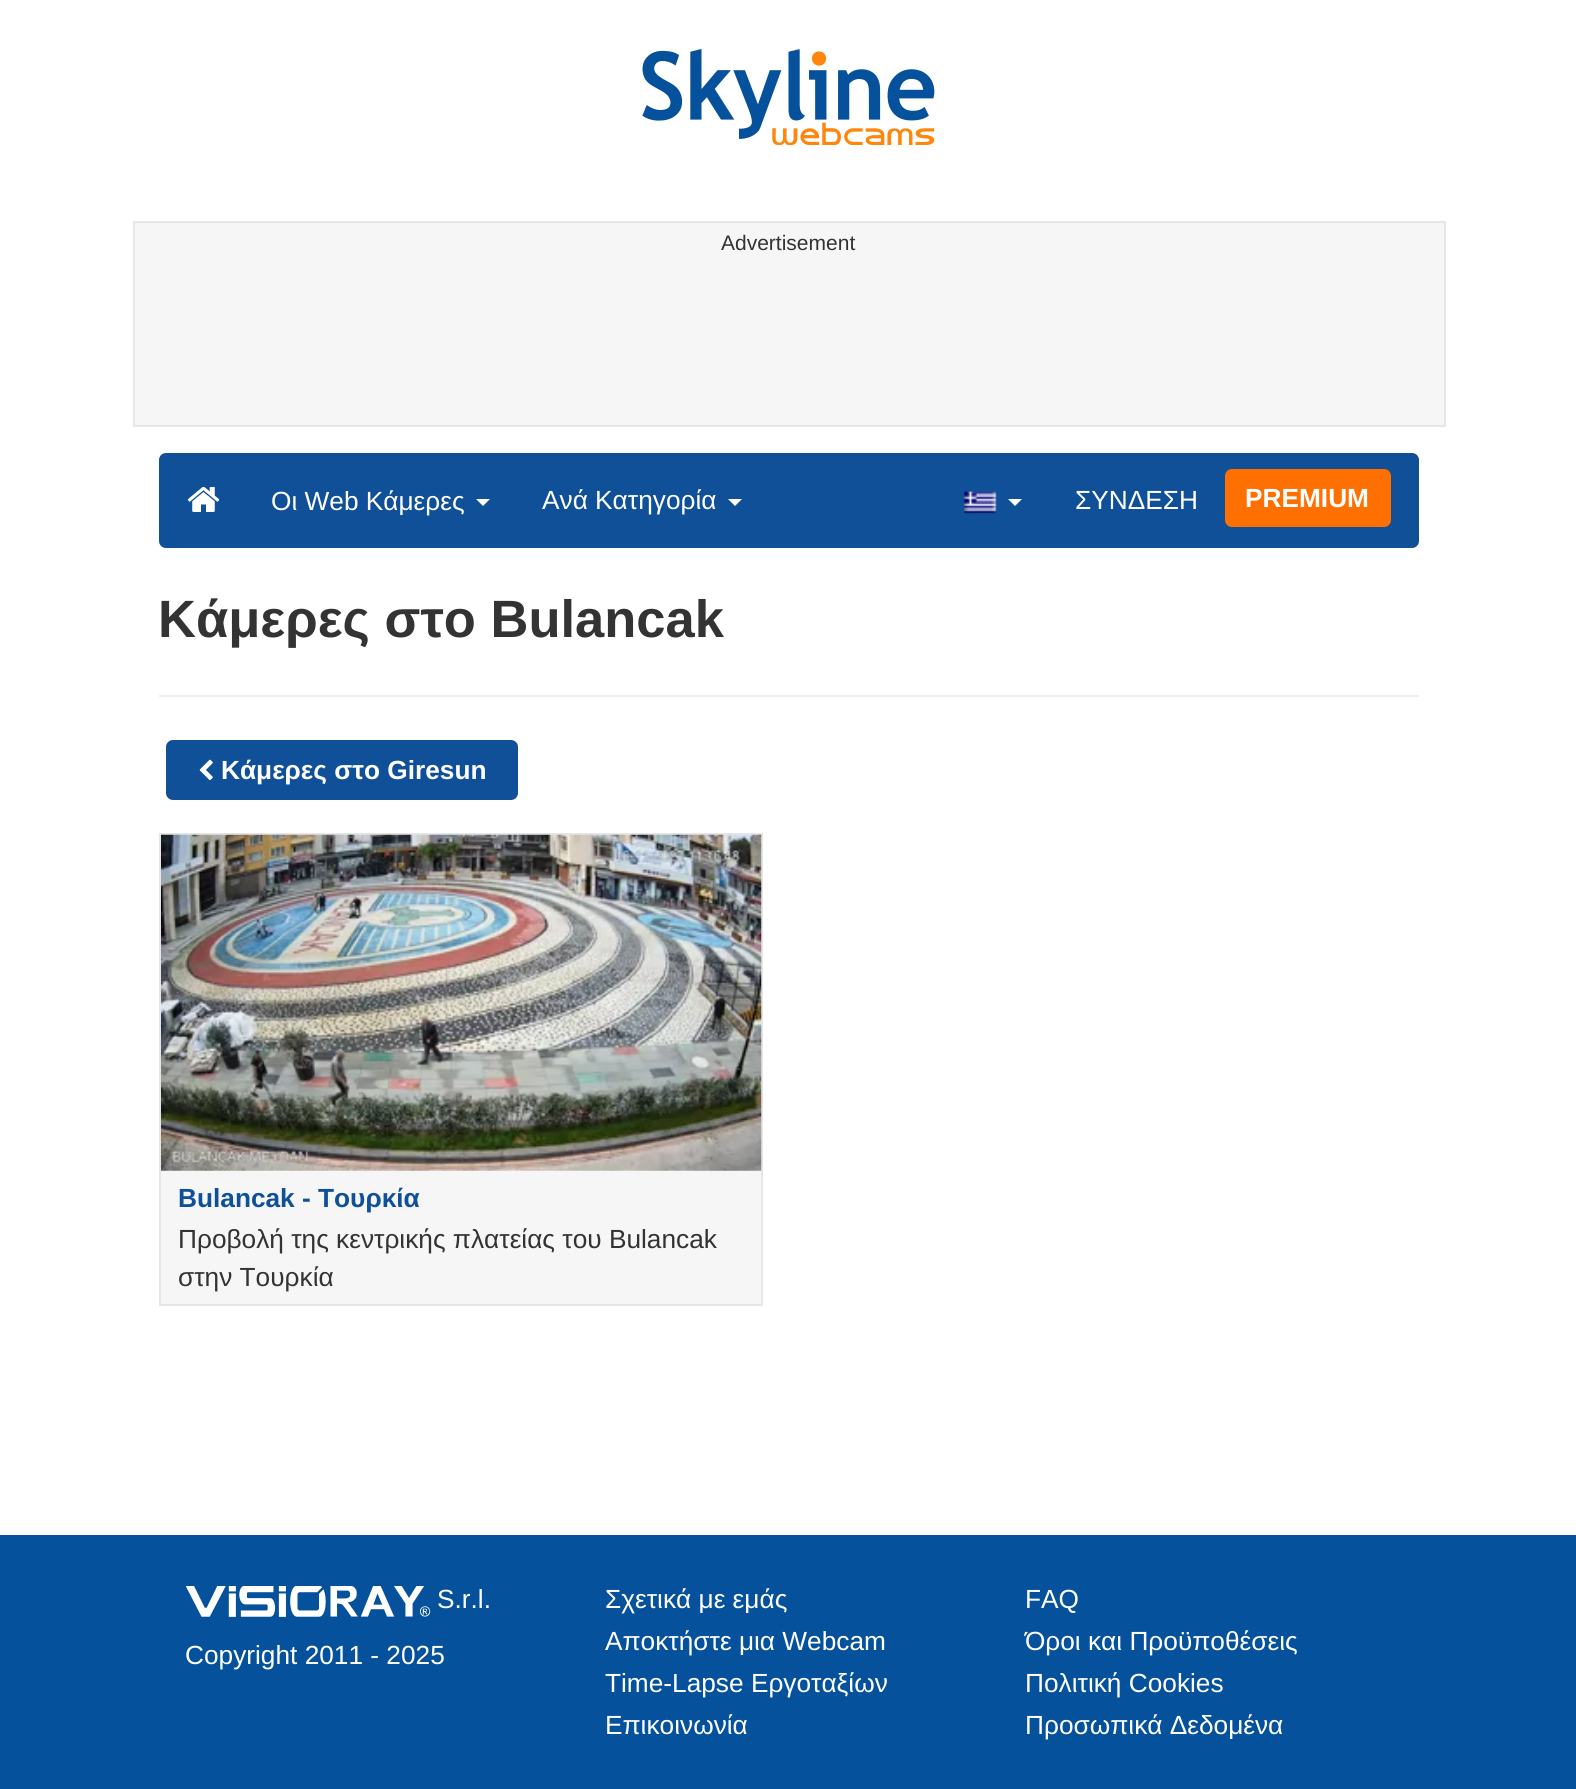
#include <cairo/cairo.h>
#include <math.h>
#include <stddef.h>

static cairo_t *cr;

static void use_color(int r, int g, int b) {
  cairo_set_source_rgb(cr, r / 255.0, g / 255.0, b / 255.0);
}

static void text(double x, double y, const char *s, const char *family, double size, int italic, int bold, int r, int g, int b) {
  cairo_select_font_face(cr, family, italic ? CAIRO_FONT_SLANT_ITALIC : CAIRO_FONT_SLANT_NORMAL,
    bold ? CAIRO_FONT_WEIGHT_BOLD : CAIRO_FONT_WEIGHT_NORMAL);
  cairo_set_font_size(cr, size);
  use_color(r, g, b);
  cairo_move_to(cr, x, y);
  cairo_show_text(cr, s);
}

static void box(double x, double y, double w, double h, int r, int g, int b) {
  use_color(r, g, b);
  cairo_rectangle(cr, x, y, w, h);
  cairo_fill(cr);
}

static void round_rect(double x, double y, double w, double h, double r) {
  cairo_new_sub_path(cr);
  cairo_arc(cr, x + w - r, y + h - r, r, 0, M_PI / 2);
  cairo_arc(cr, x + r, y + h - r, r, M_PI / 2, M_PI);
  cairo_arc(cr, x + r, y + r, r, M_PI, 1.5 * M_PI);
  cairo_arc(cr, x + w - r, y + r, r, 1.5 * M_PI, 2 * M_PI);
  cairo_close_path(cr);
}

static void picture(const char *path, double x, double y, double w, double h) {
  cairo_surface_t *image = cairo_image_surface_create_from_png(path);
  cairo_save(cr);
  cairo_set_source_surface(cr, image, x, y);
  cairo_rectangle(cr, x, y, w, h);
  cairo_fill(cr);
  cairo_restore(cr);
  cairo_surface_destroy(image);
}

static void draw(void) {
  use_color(255, 255, 255);
  cairo_paint(cr);
  picture("img_01.png", 642, 49, 293, 96);
  use_color(246, 246, 246);
  cairo_rectangle(cr, 134, 222, 1311, 204);
  cairo_fill_preserve(cr);
  use_color(230, 230, 230);
  cairo_stroke(cr);
  use_color(16, 80, 152);
  round_rect(159, 453, 1260, 95, 7);
  cairo_fill(cr);
  picture("img_02.png", 187, 487, 33, 25);
  use_color(255, 255, 255);
  cairo_new_path(cr);
  cairo_move_to(cr, 476, 499);
  cairo_line_to(cr, 490, 499);
  cairo_line_to(cr, 483, 506);
  cairo_close_path(cr);
  cairo_fill(cr);
  cairo_new_path(cr);
  cairo_move_to(cr, 728, 499);
  cairo_line_to(cr, 742, 499);
  cairo_line_to(cr, 735, 506);
  cairo_close_path(cr);
  cairo_fill(cr);
  picture("img_03.png", 963, 491, 34, 23);
  cairo_new_path(cr);
  cairo_move_to(cr, 1008, 499);
  cairo_line_to(cr, 1022, 499);
  cairo_line_to(cr, 1015, 506);
  cairo_close_path(cr);
  cairo_fill(cr);
  use_color(255, 112, 0);
  round_rect(1225, 469, 166, 58, 7);
  cairo_fill(cr);
  box(159, 695, 1260, 2, 238, 238, 238);
  use_color(16, 80, 152);
  round_rect(166, 740, 352, 60, 7);
  cairo_fill(cr);
  picture("img_04.png", 199, 759, 14, 22);
  box(161, 1170, 600, 134, 246, 246, 246);
  cairo_rectangle(cr, 160, 834, 602, 471);
  use_color(230, 230, 230);
  cairo_stroke(cr);
  picture("img_05.png", 161, 834, 601, 337);
  box(0, 1535, 1576, 254, 5, 81, 156);
  picture("img_06.png", 186, 1586, 245, 31);
  text(721, 250, "Advertisement", "Liberation Sans", 21, 0, 0, 51, 51, 51);
  text(271, 510, "Οι Web Κάμερες", "Liberation Sans", 26.25, 0, 0, 255, 255, 255);
  text(542, 509, "Ανά Κατηγορία", "Liberation Sans", 26.25, 0, 0, 255, 255, 255);
  text(1075, 509, "ΣΥΝΔΕΣΗ", "Liberation Sans", 26.25, 0, 0, 255, 255, 255);
  text(1245, 507, "PREMIUM", "Liberation Sans", 26.25, 0, 1, 255, 255, 255);
  text(158, 637, "Κάμερες στο Bulancak", "Liberation Sans", 52.5, 0, 1, 51, 51, 51);
  text(221, 779, "Κάμερες στο Giresun", "Liberation Sans", 26.25, 0, 1, 255, 255, 255);
  text(178, 1207, "Bulancak - Τουρκία", "Liberation Sans", 26.25, 0, 1, 16, 80, 152);
  text(178, 1248, "Προβολή της κεντρικής πλατείας του Bulancak", "Liberation Sans", 26.25, 0, 0, 51, 51, 51);
  text(178, 1286, "στην Τουρκία", "Liberation Sans", 26.25, 0, 0, 51, 51, 51);
  text(437, 1608, "S.r.l.", "Liberation Sans", 26.25, 0, 0, 255, 255, 255);
  text(185, 1664, "Copyright 2011 - 2025", "Liberation Sans", 26.25, 0, 0, 255, 255, 255);
  text(605, 1608, "Σχετικά με εμάς", "Liberation Sans", 26.25, 0, 0, 255, 255, 255);
  text(605, 1650, "Αποκτήστε μια Webcam", "Liberation Sans", 26.25, 0, 0, 255, 255, 255);
  text(605, 1692, "Time-Lapse Εργοταξίων", "Liberation Sans", 26.25, 0, 0, 255, 255, 255);
  text(605, 1734, "Επικοινωνία", "Liberation Sans", 26.25, 0, 0, 255, 255, 255);
  text(1025, 1608, "FAQ", "Liberation Sans", 26.25, 0, 0, 255, 255, 255);
  text(1025, 1650, "Όροι και Προϋποθέσεις", "Liberation Sans", 26.25, 0, 0, 255, 255, 255);
  text(1025, 1692, "Πολιτική Cookies", "Liberation Sans", 26.25, 0, 0, 255, 255, 255);
  text(1025, 1734, "Προσωπικά Δεδομένα", "Liberation Sans", 26.25, 0, 0, 255, 255, 255);
}

int main(void) {
  cairo_surface_t *surface = cairo_image_surface_create(CAIRO_FORMAT_RGB24, 1576, 1789);
  cr = cairo_create(surface);
  cairo_font_options_t *options = cairo_font_options_create();
  cairo_font_options_set_hint_metrics(options, CAIRO_HINT_METRICS_OFF);
  cairo_font_options_set_hint_style(options, CAIRO_HINT_STYLE_NONE);
  cairo_set_font_options(cr, options);
  cairo_set_miter_limit(cr, 4);
  draw();
  cairo_surface_write_to_png(surface, "out.png");
  cairo_font_options_destroy(options);
  cairo_destroy(cr);
  cairo_surface_destroy(surface);
  return 0;
}
